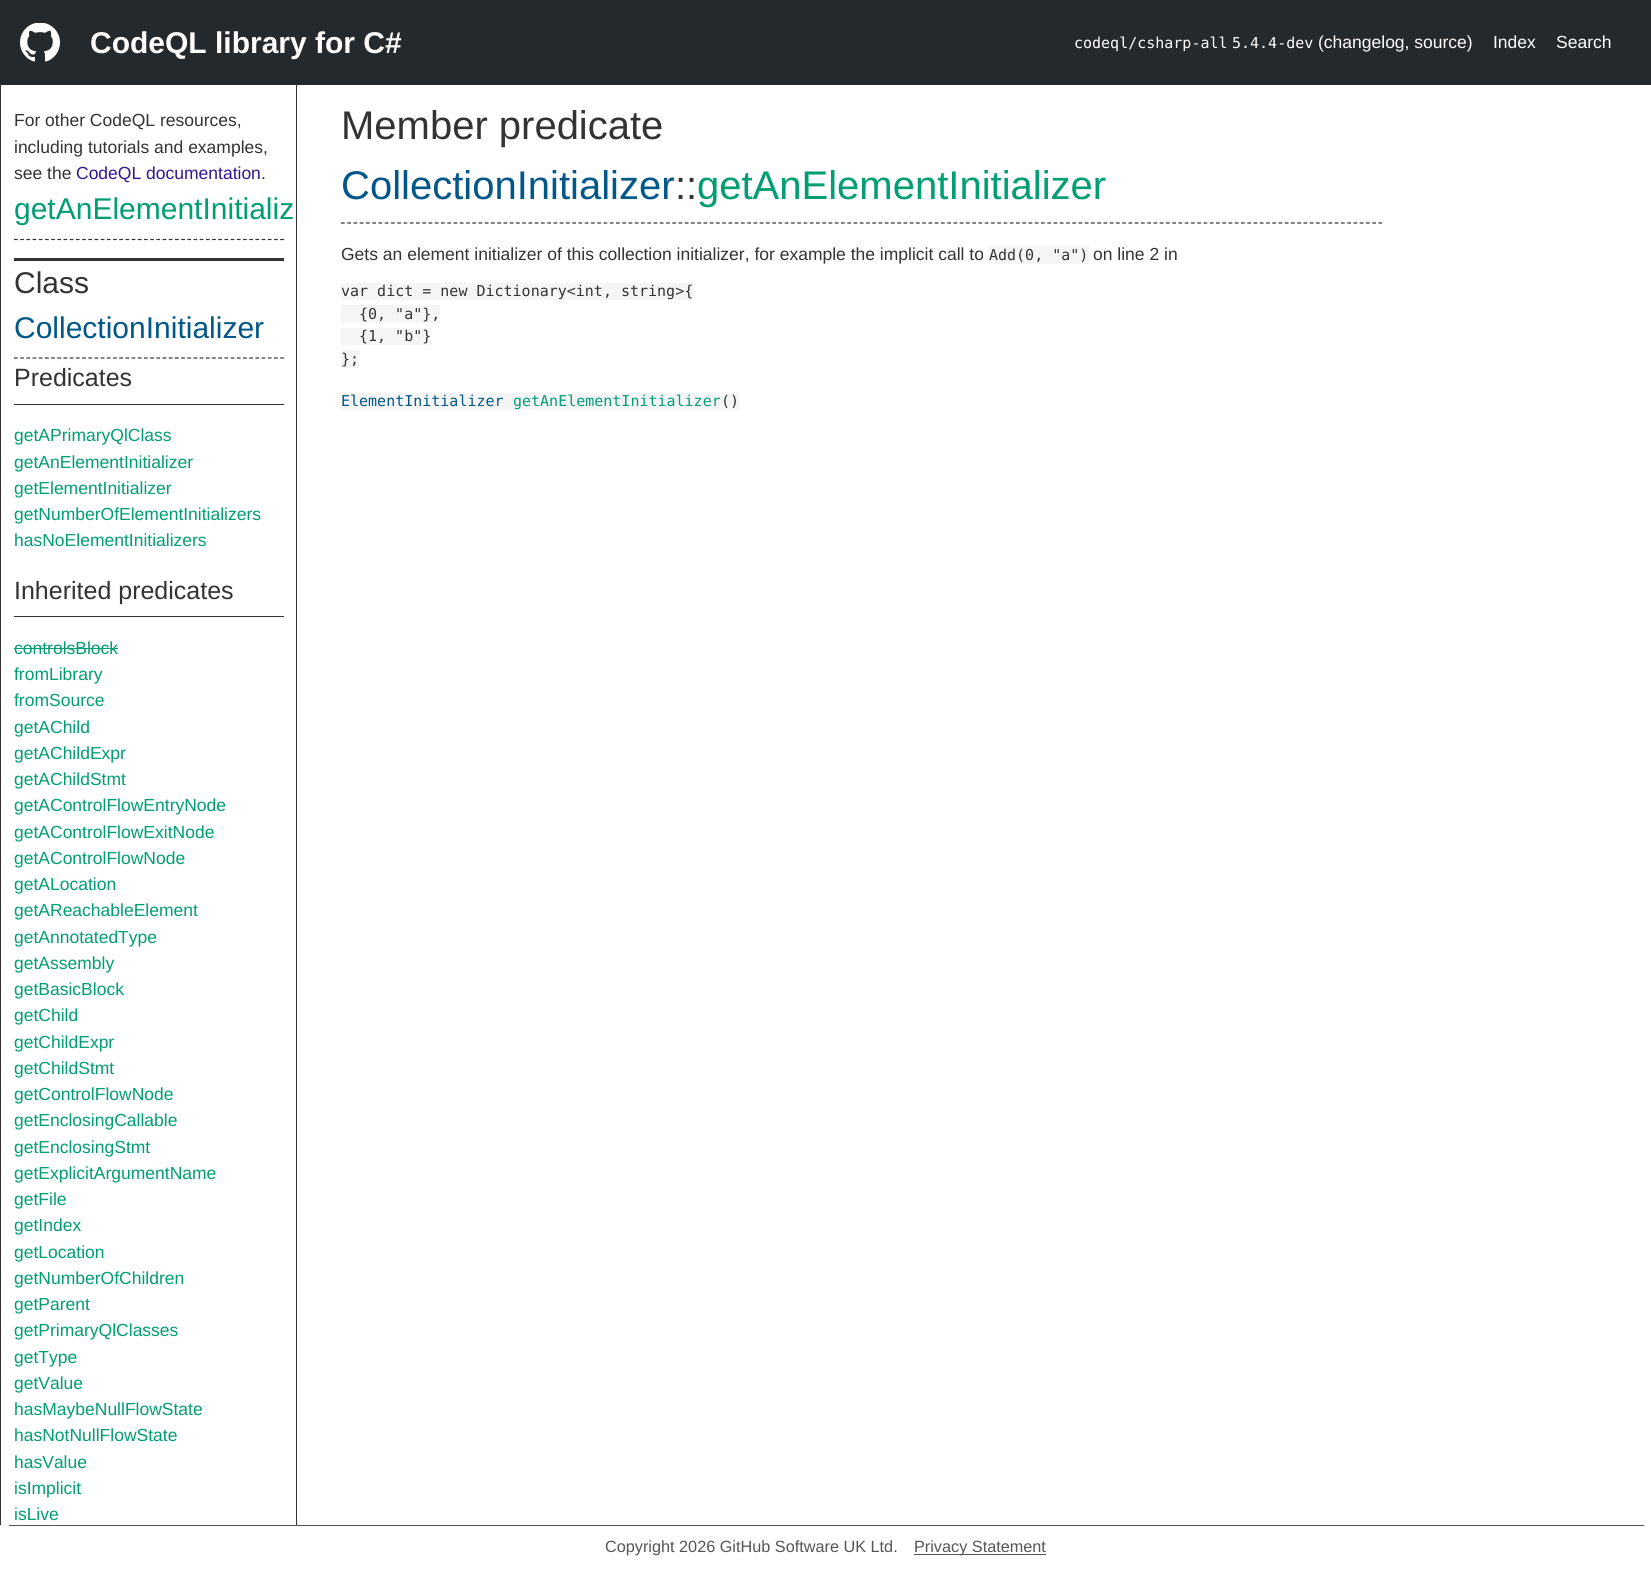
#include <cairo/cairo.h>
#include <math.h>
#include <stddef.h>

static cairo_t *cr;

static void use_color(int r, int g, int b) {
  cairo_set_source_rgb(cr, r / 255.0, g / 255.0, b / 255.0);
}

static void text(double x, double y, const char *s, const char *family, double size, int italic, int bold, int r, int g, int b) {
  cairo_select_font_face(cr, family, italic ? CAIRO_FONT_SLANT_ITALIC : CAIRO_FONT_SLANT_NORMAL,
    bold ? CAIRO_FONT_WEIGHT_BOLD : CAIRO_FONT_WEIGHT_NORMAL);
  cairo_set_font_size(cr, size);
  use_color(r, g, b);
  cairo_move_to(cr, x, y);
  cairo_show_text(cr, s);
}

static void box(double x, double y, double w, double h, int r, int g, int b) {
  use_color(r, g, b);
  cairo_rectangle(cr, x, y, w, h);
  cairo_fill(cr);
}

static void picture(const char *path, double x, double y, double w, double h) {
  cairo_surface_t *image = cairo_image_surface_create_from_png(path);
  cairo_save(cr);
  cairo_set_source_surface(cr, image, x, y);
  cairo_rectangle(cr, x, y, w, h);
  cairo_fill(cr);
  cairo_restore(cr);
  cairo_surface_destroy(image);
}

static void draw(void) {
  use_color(255, 255, 255);
  cairo_paint(cr);
  box(0, 0, 1651, 85, 36, 41, 46);
  picture("img_01.png", 20, 23, 40, 39);
  box(296, 85, 1, 1440, 51, 51, 51);
  box(0, 85, 1, 1440, 51, 51, 51);
  box(14, 258, 270, 3, 51, 51, 51);
  cairo_new_path(cr);
  cairo_move_to(cr, 14, 239.5);
  cairo_line_to(cr, 284, 239.5);
  cairo_set_line_width(cr, 1.2);
  cairo_set_dash(cr, (double[]){3.75, 2.44}, 2, 0);
  cairo_stroke(cr);
  cairo_new_path(cr);
  cairo_move_to(cr, 14, 358);
  cairo_line_to(cr, 284, 358);
  cairo_stroke(cr);
  box(14, 404, 270, 1, 51, 51, 51);
  box(14, 616, 270, 1, 51, 51, 51);
  box(14, 648, 104, 1, 0, 158, 115);
  cairo_new_path(cr);
  cairo_move_to(cr, 341, 223);
  cairo_line_to(cr, 1382.5, 223);
  use_color(51, 51, 51);
  cairo_set_dash(cr, (double[]){3.75, 2.5}, 2, 0);
  cairo_stroke(cr);
  box(989, 246, 100, 18, 245, 245, 245);
  box(341, 283, 353, 17, 245, 245, 245);
  box(341, 305, 99, 18, 245, 245, 245);
  box(341, 328, 90, 17, 245, 245, 245);
  box(341, 350, 18, 18, 245, 245, 245);
  box(341, 393, 398, 17, 245, 245, 245);
  box(9, 1525, 1635, 1, 85, 85, 85);
  box(914, 1554, 132, 1, 85, 85, 85);
  text(90, 53, "CodeQL library for C#", "Liberation Sans", 30, 0, 1, 255, 255, 255);
  text(1074, 48, "codeql/csharp-all", "DejaVu Sans Mono", 15, 0, 0, 255, 255, 255);
  text(1232, 48, "5.4.4-dev", "DejaVu Sans Mono", 15, 0, 0, 255, 255, 255);
  text(1318, 48, "(changelog, source)", "Liberation Sans", 17.5, 0, 0, 255, 255, 255);
  text(1493, 48, "Index", "Liberation Sans", 17.5, 0, 0, 255, 255, 255);
  text(1556, 48, "Search", "Liberation Sans", 17.5, 0, 0, 255, 255, 255);
  text(14, 126, "For other CodeQL resources,", "Liberation Sans", 17.5, 0, 0, 51, 51, 51);
  text(14, 153, "including tutorials and examples,", "Liberation Sans", 17.5, 0, 0, 51, 51, 51);
  text(14, 179, "see the", "Liberation Sans", 17.5, 0, 0, 51, 51, 51);
  text(76, 179, "CodeQL documentation", "Liberation Sans", 17.5, 0, 0, 47, 22, 149);
  text(261, 179, ".", "Liberation Sans", 17.5, 0, 0, 51, 51, 51);
  text(14, 219, "getAnElementInitializ", "Liberation Sans", 30, 0, 0, 0, 158, 115);
  text(14, 293, "Class", "Liberation Sans", 30, 0, 0, 51, 51, 51);
  text(14, 338, "CollectionInitializer", "Liberation Sans", 30, 0, 0, 0, 87, 136);
  text(14, 386, "Predicates", "Liberation Sans", 25, 0, 0, 51, 51, 51);
  text(14, 441, "getAPrimaryQlClass", "Liberation Sans", 17.5, 0, 0, 0, 158, 115);
  text(14, 468, "getAnElementInitializer", "Liberation Sans", 17.5, 0, 0, 0, 158, 115);
  text(14, 494, "getElementInitializer", "Liberation Sans", 17.5, 0, 0, 0, 158, 115);
  text(14, 520, "getNumberOfElementInitializers", "Liberation Sans", 17.5, 0, 0, 0, 158, 115);
  text(14, 546, "hasNoElementInitializers", "Liberation Sans", 17.5, 0, 0, 0, 158, 115);
  text(14, 599, "Inherited predicates", "Liberation Sans", 25, 0, 0, 51, 51, 51);
  text(14, 654, "controlsBlock", "Liberation Sans", 17.5, 0, 0, 0, 158, 115);
  text(14, 680, "fromLibrary", "Liberation Sans", 17.5, 0, 0, 0, 158, 115);
  text(14, 706, "fromSource", "Liberation Sans", 17.5, 0, 0, 0, 158, 115);
  text(14, 733, "getAChild", "Liberation Sans", 17.5, 0, 0, 0, 158, 115);
  text(14, 759, "getAChildExpr", "Liberation Sans", 17.5, 0, 0, 0, 158, 115);
  text(14, 785, "getAChildStmt", "Liberation Sans", 17.5, 0, 0, 0, 158, 115);
  text(14, 811, "getAControlFlowEntryNode", "Liberation Sans", 17.5, 0, 0, 0, 158, 115);
  text(14, 838, "getAControlFlowExitNode", "Liberation Sans", 17.5, 0, 0, 0, 158, 115);
  text(14, 864, "getAControlFlowNode", "Liberation Sans", 17.5, 0, 0, 0, 158, 115);
  text(14, 890, "getALocation", "Liberation Sans", 17.5, 0, 0, 0, 158, 115);
  text(14, 916, "getAReachableElement", "Liberation Sans", 17.5, 0, 0, 0, 158, 115);
  text(14, 943, "getAnnotatedType", "Liberation Sans", 17.5, 0, 0, 0, 158, 115);
  text(14, 969, "getAssembly", "Liberation Sans", 17.5, 0, 0, 0, 158, 115);
  text(14, 995, "getBasicBlock", "Liberation Sans", 17.5, 0, 0, 0, 158, 115);
  text(14, 1021, "getChild", "Liberation Sans", 17.5, 0, 0, 0, 158, 115);
  text(14, 1048, "getChildExpr", "Liberation Sans", 17.5, 0, 0, 0, 158, 115);
  text(14, 1074, "getChildStmt", "Liberation Sans", 17.5, 0, 0, 0, 158, 115);
  text(14, 1100, "getControlFlowNode", "Liberation Sans", 17.5, 0, 0, 0, 158, 115);
  text(14, 1126, "getEnclosingCallable", "Liberation Sans", 17.5, 0, 0, 0, 158, 115);
  text(14, 1153, "getEnclosingStmt", "Liberation Sans", 17.5, 0, 0, 0, 158, 115);
  text(14, 1179, "getExplicitArgumentName", "Liberation Sans", 17.5, 0, 0, 0, 158, 115);
  text(14, 1205, "getFile", "Liberation Sans", 17.5, 0, 0, 0, 158, 115);
  text(14, 1231, "getIndex", "Liberation Sans", 17.5, 0, 0, 0, 158, 115);
  text(14, 1258, "getLocation", "Liberation Sans", 17.5, 0, 0, 0, 158, 115);
  text(14, 1284, "getNumberOfChildren", "Liberation Sans", 17.5, 0, 0, 0, 158, 115);
  text(14, 1310, "getParent", "Liberation Sans", 17.5, 0, 0, 0, 158, 115);
  text(14, 1336, "getPrimaryQlClasses", "Liberation Sans", 17.5, 0, 0, 0, 158, 115);
  text(14, 1363, "getType", "Liberation Sans", 17.5, 0, 0, 0, 158, 115);
  text(14, 1389, "getValue", "Liberation Sans", 17.5, 0, 0, 0, 158, 115);
  text(14, 1415, "hasMaybeNullFlowState", "Liberation Sans", 17.5, 0, 0, 0, 158, 115);
  text(14, 1441, "hasNotNullFlowState", "Liberation Sans", 17.5, 0, 0, 0, 158, 115);
  text(14, 1468, "hasValue", "Liberation Sans", 17.5, 0, 0, 0, 158, 115);
  text(14, 1494, "isImplicit", "Liberation Sans", 17.5, 0, 0, 0, 158, 115);
  text(14, 1520, "isLive", "Liberation Sans", 17.5, 0, 0, 0, 158, 115);
  text(341, 139, "Member predicate", "Liberation Sans", 40, 0, 0, 51, 51, 51);
  text(341, 199, "CollectionInitializer", "Liberation Sans", 40, 0, 0, 0, 87, 136);
  text(675, 199, "::", "Liberation Sans", 40, 0, 0, 51, 51, 51);
  text(697, 199, "getAnElementInitializer", "Liberation Sans", 40, 0, 0, 0, 158, 115);
  text(341, 260, "Gets an element initializer of this collection initializer, for example the implicit call to", "Liberation Sans", 17.5, 0, 0, 51, 51, 51);
  text(989, 260, "Add(0, \"a\")", "DejaVu Sans Mono", 15, 0, 0, 51, 51, 51);
  text(1093, 260, "on line 2 in", "Liberation Sans", 17.5, 0, 0, 51, 51, 51);
  text(341, 296, "var dict = new Dictionary<int, string>{", "DejaVu Sans Mono", 15, 0, 0, 51, 51, 51);
  text(359, 319, "{0, \"a\"},", "DejaVu Sans Mono", 15, 0, 0, 51, 51, 51);
  text(359, 341, "{1, \"b\"}", "DejaVu Sans Mono", 15, 0, 0, 51, 51, 51);
  text(341, 364, "};", "DejaVu Sans Mono", 15, 0, 0, 51, 51, 51);
  text(341, 406, "ElementInitializer", "DejaVu Sans Mono", 15, 0, 0, 0, 87, 136);
  text(513, 406, "getAnElementInitializer", "DejaVu Sans Mono", 15, 0, 0, 0, 158, 115);
  text(721, 406, "()", "DejaVu Sans Mono", 15, 0, 0, 51, 51, 51);
  text(605, 1552, "Copyright 2026 GitHub Software UK Ltd.", "Liberation Sans", 16.25, 0, 0, 85, 85, 85);
  text(914, 1552, "Privacy Statement", "Liberation Sans", 16.25, 0, 0, 85, 85, 85);
}

int main(void) {
  cairo_surface_t *surface = cairo_image_surface_create(CAIRO_FORMAT_RGB24, 1651, 1575);
  cr = cairo_create(surface);
  cairo_font_options_t *options = cairo_font_options_create();
  cairo_font_options_set_hint_metrics(options, CAIRO_HINT_METRICS_OFF);
  cairo_font_options_set_hint_style(options, CAIRO_HINT_STYLE_NONE);
  cairo_set_font_options(cr, options);
  cairo_set_miter_limit(cr, 4);
  draw();
  cairo_surface_write_to_png(surface, "out.png");
  cairo_font_options_destroy(options);
  cairo_destroy(cr);
  cairo_surface_destroy(surface);
  return 0;
}
